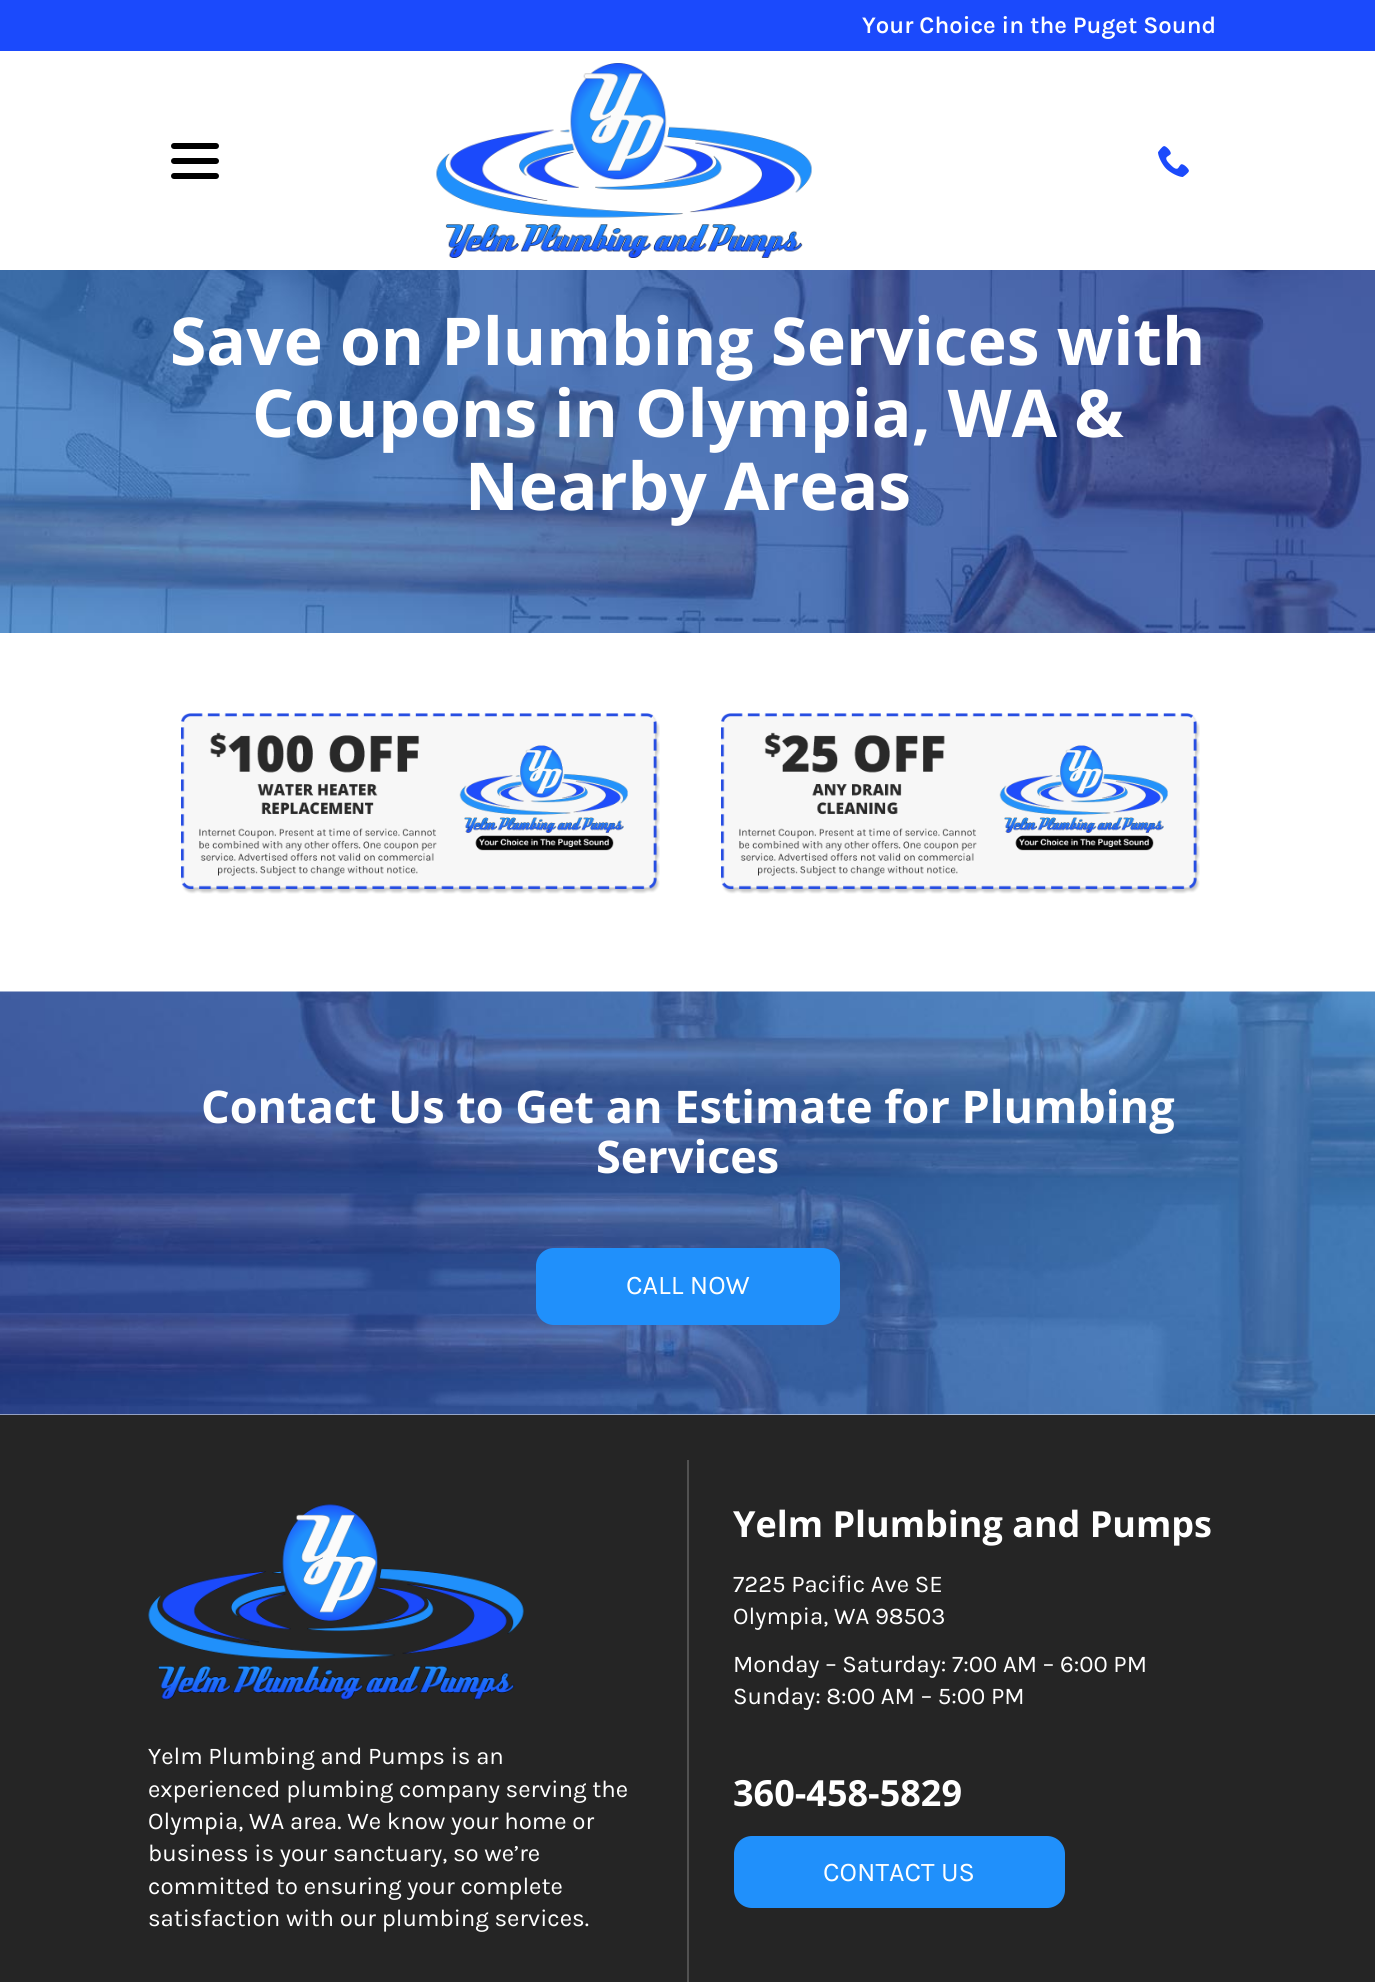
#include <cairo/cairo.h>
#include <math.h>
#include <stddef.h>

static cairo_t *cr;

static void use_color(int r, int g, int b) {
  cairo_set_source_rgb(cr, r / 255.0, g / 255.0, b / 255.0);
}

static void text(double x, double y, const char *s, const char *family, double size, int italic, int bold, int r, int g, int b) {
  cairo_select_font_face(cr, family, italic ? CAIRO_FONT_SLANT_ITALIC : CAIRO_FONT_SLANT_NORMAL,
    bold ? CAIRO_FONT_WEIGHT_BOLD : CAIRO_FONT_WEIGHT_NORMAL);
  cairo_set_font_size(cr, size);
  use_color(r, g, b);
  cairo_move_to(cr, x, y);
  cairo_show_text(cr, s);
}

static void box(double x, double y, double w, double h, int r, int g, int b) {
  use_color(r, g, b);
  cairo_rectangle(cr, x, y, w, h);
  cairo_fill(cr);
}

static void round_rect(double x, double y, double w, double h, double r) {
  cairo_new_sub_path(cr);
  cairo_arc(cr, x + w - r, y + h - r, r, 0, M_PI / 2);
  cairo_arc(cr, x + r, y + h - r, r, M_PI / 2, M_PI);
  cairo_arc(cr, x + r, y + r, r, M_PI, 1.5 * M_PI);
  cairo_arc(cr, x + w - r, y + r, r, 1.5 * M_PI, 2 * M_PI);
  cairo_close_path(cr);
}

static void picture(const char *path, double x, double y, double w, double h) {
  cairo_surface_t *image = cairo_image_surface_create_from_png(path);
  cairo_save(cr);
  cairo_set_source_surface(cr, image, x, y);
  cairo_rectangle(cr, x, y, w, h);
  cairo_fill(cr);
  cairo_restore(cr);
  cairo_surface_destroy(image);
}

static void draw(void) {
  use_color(255, 255, 255);
  cairo_paint(cr);
  box(0, 0, 1375, 51, 27, 74, 252);
  use_color(0, 0, 0);
  round_rect(171, 158, 48, 6, 3);
  cairo_fill(cr);
  round_rect(171, 143, 48, 6, 3);
  cairo_fill(cr);
  round_rect(171, 173, 48, 6, 3);
  cairo_fill(cr);
  picture("img_01.png", 436, 63, 376, 195);
  picture("img_02.png", 1158, 146, 31, 31);
  picture("img_03.png", 0, 270, 1375, 363);
  picture("img_04.png", 181, 713, 479, 181);
  picture("img_05.png", 721, 713, 479, 181);
  picture("img_06.png", 0, 991, 1375, 424);
  use_color(32, 144, 251);
  round_rect(536, 1248, 304, 77, 18);
  cairo_fill(cr);
  box(0, 1415, 1375, 567, 37, 37, 37);
  box(687, 1460, 2, 522, 81, 81, 81);
  picture("img_07.png", 148, 1504, 376, 196);
  use_color(32, 144, 251);
  round_rect(734, 1836, 331, 72, 18);
  cairo_fill(cr);
  text(862, 33, "Your Choice in the Puget Sound", "Karla SemiBold", 24, 0, 0, 255, 255, 255);
  text(170, 365, "Save on Plumbing Services with", "Open Sans", 66, 0, 1, 255, 255, 255);
  text(252, 437, "Coupons in Olympia, WA &", "Open Sans", 66, 0, 1, 255, 255, 255);
  text(465, 510, "Nearby Areas", "Open Sans", 66, 0, 1, 255, 255, 255);
  text(201, 1123, "Contact Us to Get an Estimate for Plumbing", "Open Sans", 45, 0, 1, 255, 255, 255);
  text(596, 1173, "Services", "Open Sans", 45, 0, 1, 255, 255, 255);
  text(626, 1294, "CALL NOW", "Karla", 27, 0, 0, 255, 255, 255);
  text(148, 1764, "Yelm Plumbing and Pumps is an", "Karla", 24, 0, 0, 255, 255, 255);
  text(148, 1797, "experienced plumbing company serving the", "Karla", 24, 0, 0, 255, 255, 255);
  text(148, 1829, "Olympia, WA area. We know your home or", "Karla", 24, 0, 0, 255, 255, 255);
  text(148, 1861, "business is your sanctuary, so we’re", "Karla", 24, 0, 0, 255, 255, 255);
  text(148, 1894, "committed to ensuring your complete", "Karla", 24, 0, 0, 255, 255, 255);
  text(148, 1926, "satisfaction with our plumbing services.", "Karla", 24, 0, 0, 255, 255, 255);
  text(733, 1537, "Yelm Plumbing and Pumps", "Open Sans", 36, 0, 1, 255, 255, 255);
  text(733, 1592, "7225 Pacific Ave SE", "Karla", 24, 0, 0, 255, 255, 255);
  text(733, 1624, "Olympia, WA 98503", "Karla", 24, 0, 0, 255, 255, 255);
  text(733, 1672, "Monday – Saturday: 7:00 AM – 6:00 PM", "Karla", 24, 0, 0, 255, 255, 255);
  text(733, 1704, "Sunday: 8:00 AM – 5:00 PM", "Karla", 24, 0, 0, 255, 255, 255);
  text(733, 1806, "360-458-5829", "Open Sans", 36, 0, 1, 255, 255, 255);
  text(823, 1881, "CONTACT US", "Karla", 27, 0, 0, 255, 255, 255);
}

int main(void) {
  cairo_surface_t *surface = cairo_image_surface_create(CAIRO_FORMAT_RGB24, 1375, 1982);
  cr = cairo_create(surface);
  cairo_font_options_t *options = cairo_font_options_create();
  cairo_font_options_set_hint_metrics(options, CAIRO_HINT_METRICS_OFF);
  cairo_font_options_set_hint_style(options, CAIRO_HINT_STYLE_NONE);
  cairo_set_font_options(cr, options);
  cairo_set_miter_limit(cr, 4);
  draw();
  cairo_surface_write_to_png(surface, "out.png");
  cairo_font_options_destroy(options);
  cairo_destroy(cr);
  cairo_surface_destroy(surface);
  return 0;
}
